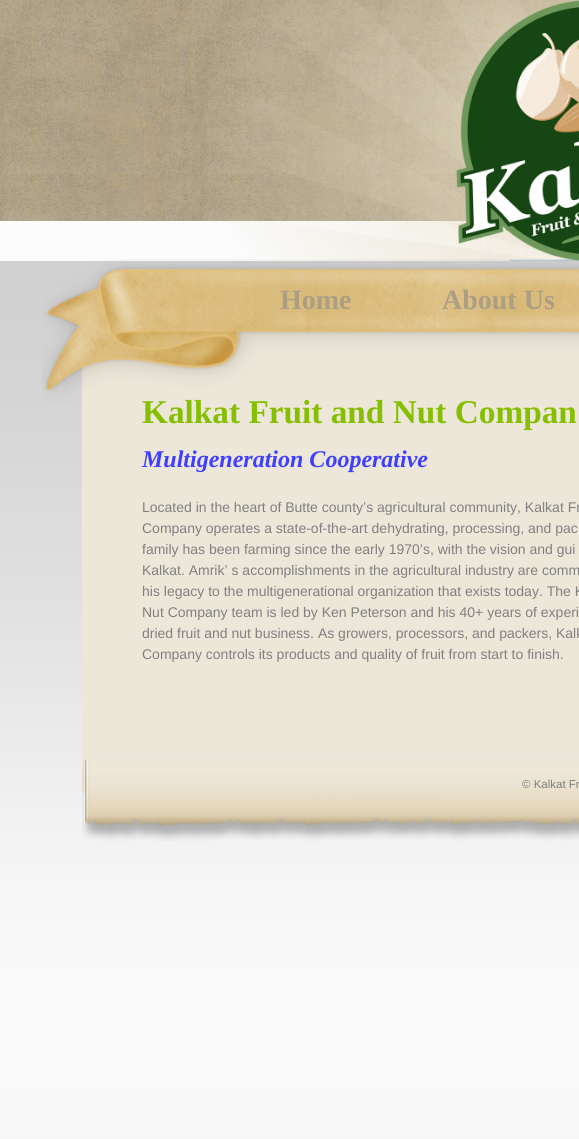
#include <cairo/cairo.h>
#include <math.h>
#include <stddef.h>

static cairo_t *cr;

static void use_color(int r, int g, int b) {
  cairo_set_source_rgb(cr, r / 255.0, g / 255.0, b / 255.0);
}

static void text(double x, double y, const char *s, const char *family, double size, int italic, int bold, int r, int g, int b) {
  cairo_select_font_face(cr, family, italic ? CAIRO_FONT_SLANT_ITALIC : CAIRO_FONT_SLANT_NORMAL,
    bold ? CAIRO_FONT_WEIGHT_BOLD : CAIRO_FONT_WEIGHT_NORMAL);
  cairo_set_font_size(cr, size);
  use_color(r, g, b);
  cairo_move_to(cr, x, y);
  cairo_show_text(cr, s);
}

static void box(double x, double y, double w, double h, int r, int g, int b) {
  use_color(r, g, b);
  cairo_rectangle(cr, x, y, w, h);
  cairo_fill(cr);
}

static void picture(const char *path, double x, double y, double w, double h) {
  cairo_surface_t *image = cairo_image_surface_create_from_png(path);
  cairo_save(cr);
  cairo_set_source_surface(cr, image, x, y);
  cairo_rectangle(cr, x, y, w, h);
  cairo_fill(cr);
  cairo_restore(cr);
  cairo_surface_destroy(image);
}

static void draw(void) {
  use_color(255, 255, 255);
  cairo_paint(cr);
  picture("img_01.png", 0, 0, 579, 1139);
  picture("img_02.png", 207, 0, 372, 261);
  picture("img_03.png", 42, 259, 537, 184);
  box(82, 393, 497, 400, 237, 231, 218);
  picture("img_04.png", 82, 757, 497, 84);
  text(280, 309, "Home", "Liberation Serif", 28, 0, 1, 172, 158, 131);
  text(442, 309, "About Us", "Liberation Serif", 28, 0, 1, 172, 158, 131);
  text(142, 423, "Kalkat Fruit and Nut Compan", "Liberation Serif", 33.3, 0, 1, 133, 191, 0);
  text(142, 467, "Multigeneration Cooperative", "Liberation Serif", 24, 1, 1, 63, 63, 255);
  text(142, 512, "Located in the heart of Butte county’s agricultural community, Kalkat Fr", "Liberation Sans", 14, 0, 0, 128, 128, 128);
  text(142, 533, "Company operates a state-of-the-art dehydrating, processing, and pac", "Liberation Sans", 14, 0, 0, 128, 128, 128);
  text(142, 554, "family has been farming since the early 1970’s, with the vision and gui", "Liberation Sans", 14, 0, 0, 128, 128, 128);
  text(142, 575, "Kalkat. Amrik’ s accomplishments in the agricultural industry are comm", "Liberation Sans", 14, 0, 0, 128, 128, 128);
  text(142, 596, "his legacy to the multigenerational organization that exists today. The K", "Liberation Sans", 14, 0, 0, 128, 128, 128);
  text(142, 617, "Nut Company team is led by Ken Peterson and his 40+ years of experi", "Liberation Sans", 14, 0, 0, 128, 128, 128);
  text(142, 638, "dried fruit and nut business. As growers, processors, and packers, Kalk", "Liberation Sans", 14, 0, 0, 128, 128, 128);
  text(142, 659, "Company controls its products and quality of fruit from start to finish.", "Liberation Sans", 14, 0, 0, 128, 128, 128);
  text(522, 788, "© Kalkat Fr", "Liberation Sans", 11.5, 0, 0, 128, 128, 128);
}

int main(void) {
  cairo_surface_t *surface = cairo_image_surface_create(CAIRO_FORMAT_RGB24, 579, 1139);
  cr = cairo_create(surface);
  cairo_font_options_t *options = cairo_font_options_create();
  cairo_font_options_set_hint_metrics(options, CAIRO_HINT_METRICS_OFF);
  cairo_font_options_set_hint_style(options, CAIRO_HINT_STYLE_NONE);
  cairo_set_font_options(cr, options);
  cairo_set_miter_limit(cr, 4);
  draw();
  cairo_surface_write_to_png(surface, "out.png");
  cairo_font_options_destroy(options);
  cairo_destroy(cr);
  cairo_surface_destroy(surface);
  return 0;
}
